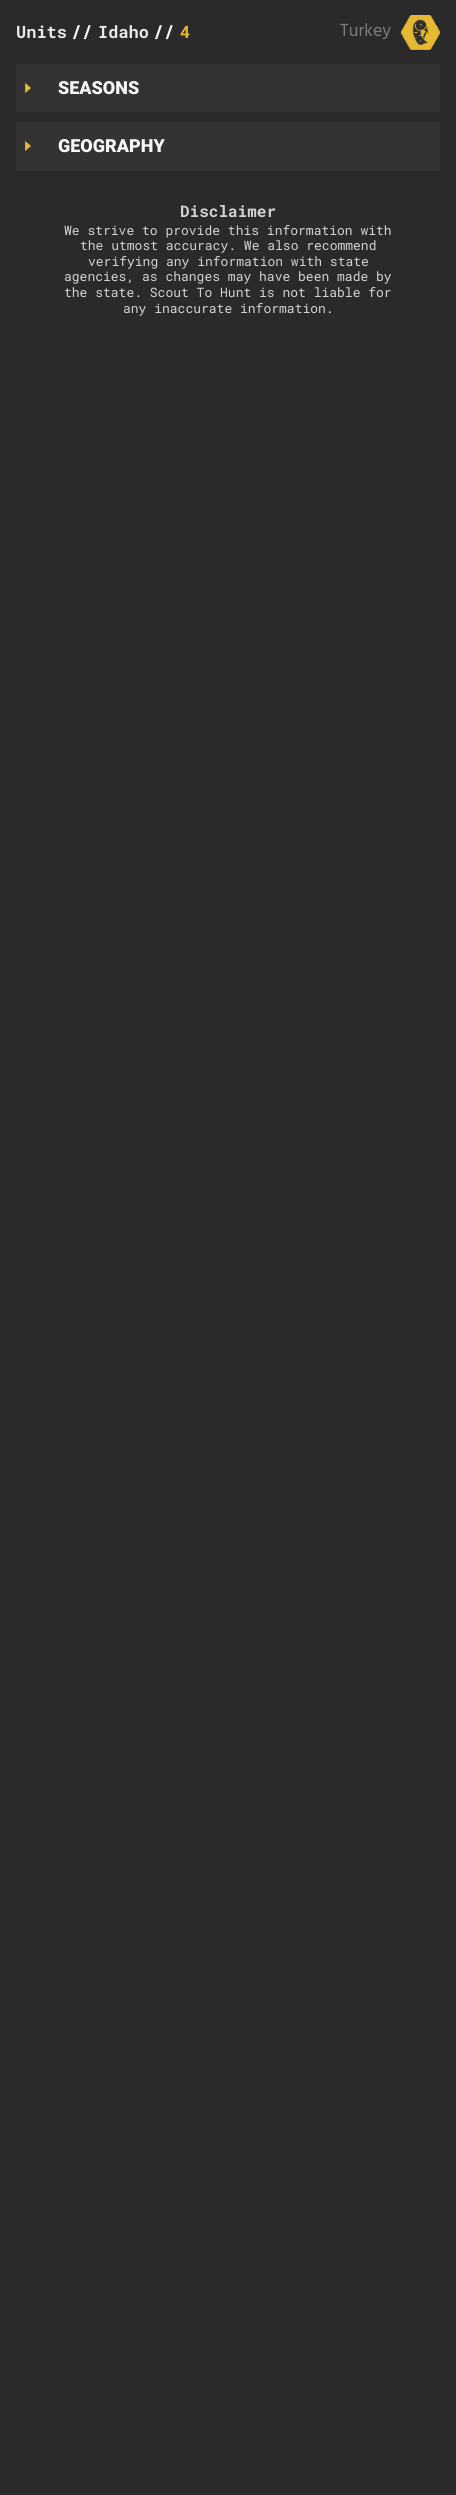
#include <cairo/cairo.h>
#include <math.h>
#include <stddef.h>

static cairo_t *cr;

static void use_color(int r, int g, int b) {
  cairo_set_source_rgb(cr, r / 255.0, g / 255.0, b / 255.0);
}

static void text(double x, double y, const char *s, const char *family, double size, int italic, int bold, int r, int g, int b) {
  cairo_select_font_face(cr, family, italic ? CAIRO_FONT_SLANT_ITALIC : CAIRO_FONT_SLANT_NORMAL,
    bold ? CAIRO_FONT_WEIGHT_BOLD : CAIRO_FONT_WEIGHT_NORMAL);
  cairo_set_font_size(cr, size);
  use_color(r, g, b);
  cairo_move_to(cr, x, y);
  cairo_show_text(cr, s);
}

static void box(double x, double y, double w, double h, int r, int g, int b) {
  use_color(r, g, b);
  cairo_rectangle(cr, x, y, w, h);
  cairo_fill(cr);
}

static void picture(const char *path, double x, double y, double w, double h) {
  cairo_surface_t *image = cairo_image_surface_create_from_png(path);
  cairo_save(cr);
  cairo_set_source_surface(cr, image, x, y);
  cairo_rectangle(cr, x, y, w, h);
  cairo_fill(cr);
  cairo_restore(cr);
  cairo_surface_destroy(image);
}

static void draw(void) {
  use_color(42, 42, 42);
  cairo_paint(cr);
  picture("img_01.png", 401, 15, 39, 35);
  box(16, 64, 424, 48, 51, 51, 51);
  picture("img_02.png", 25, 83, 6, 10);
  box(16, 122, 424, 49, 51, 51, 51);
  picture("img_02.png", 25, 141, 6, 10);
  text(16, 38, "Units", "Roboto Mono", 17, 0, 1, 234, 234, 234);
  text(71, 38, "//", "Roboto Mono", 18, 0, 1, 247, 247, 247);
  text(98, 38, "Idaho", "Roboto Mono", 17, 0, 1, 234, 234, 234);
  text(153, 38, "//", "Roboto Mono", 18, 0, 1, 247, 247, 247);
  text(180, 38, "4", "Roboto Mono", 17, 0, 1, 231, 185, 50);
  text(340, 36, "Turkey", "Hind", 18, 0, 0, 124, 124, 124);
  text(58, 94, "SEASONS", "Roboto Black", 18, 0, 0, 247, 247, 247);
  text(58, 152, "GEOGRAPHY", "Roboto Black", 18, 0, 0, 247, 247, 247);
  text(180, 217, "Disclaimer", "Roboto Mono", 16, 0, 1, 211, 211, 211);
  text(64, 235, "We strive to provide this information with", "Roboto Mono", 13, 0, 0, 211, 211, 211);
  text(80, 250, "the utmost accuracy. We also recommend", "Roboto Mono", 13, 0, 0, 211, 211, 211);
  text(88, 266, "verifying any information with state", "Roboto Mono", 13, 0, 0, 211, 211, 211);
  text(64, 281, "agencies, as changes may have been made by", "Roboto Mono", 13, 0, 0, 211, 211, 211);
  text(64, 297, "the state. Scout To Hunt is not liable for", "Roboto Mono", 13, 0, 0, 211, 211, 211);
  text(123, 313, "any inaccurate information.", "Roboto Mono", 13, 0, 0, 211, 211, 211);
}

int main(void) {
  cairo_surface_t *surface = cairo_image_surface_create(CAIRO_FORMAT_RGB24, 456, 2495);
  cr = cairo_create(surface);
  cairo_font_options_t *options = cairo_font_options_create();
  cairo_font_options_set_hint_metrics(options, CAIRO_HINT_METRICS_OFF);
  cairo_font_options_set_hint_style(options, CAIRO_HINT_STYLE_NONE);
  cairo_set_font_options(cr, options);
  cairo_set_miter_limit(cr, 4);
  draw();
  cairo_surface_write_to_png(surface, "out.png");
  cairo_font_options_destroy(options);
  cairo_destroy(cr);
  cairo_surface_destroy(surface);
  return 0;
}
